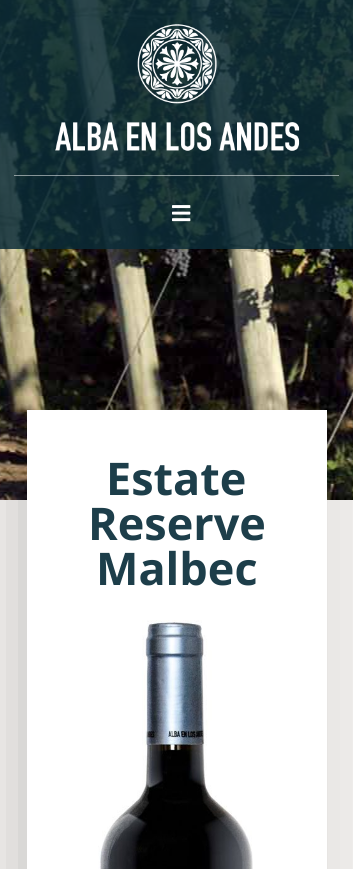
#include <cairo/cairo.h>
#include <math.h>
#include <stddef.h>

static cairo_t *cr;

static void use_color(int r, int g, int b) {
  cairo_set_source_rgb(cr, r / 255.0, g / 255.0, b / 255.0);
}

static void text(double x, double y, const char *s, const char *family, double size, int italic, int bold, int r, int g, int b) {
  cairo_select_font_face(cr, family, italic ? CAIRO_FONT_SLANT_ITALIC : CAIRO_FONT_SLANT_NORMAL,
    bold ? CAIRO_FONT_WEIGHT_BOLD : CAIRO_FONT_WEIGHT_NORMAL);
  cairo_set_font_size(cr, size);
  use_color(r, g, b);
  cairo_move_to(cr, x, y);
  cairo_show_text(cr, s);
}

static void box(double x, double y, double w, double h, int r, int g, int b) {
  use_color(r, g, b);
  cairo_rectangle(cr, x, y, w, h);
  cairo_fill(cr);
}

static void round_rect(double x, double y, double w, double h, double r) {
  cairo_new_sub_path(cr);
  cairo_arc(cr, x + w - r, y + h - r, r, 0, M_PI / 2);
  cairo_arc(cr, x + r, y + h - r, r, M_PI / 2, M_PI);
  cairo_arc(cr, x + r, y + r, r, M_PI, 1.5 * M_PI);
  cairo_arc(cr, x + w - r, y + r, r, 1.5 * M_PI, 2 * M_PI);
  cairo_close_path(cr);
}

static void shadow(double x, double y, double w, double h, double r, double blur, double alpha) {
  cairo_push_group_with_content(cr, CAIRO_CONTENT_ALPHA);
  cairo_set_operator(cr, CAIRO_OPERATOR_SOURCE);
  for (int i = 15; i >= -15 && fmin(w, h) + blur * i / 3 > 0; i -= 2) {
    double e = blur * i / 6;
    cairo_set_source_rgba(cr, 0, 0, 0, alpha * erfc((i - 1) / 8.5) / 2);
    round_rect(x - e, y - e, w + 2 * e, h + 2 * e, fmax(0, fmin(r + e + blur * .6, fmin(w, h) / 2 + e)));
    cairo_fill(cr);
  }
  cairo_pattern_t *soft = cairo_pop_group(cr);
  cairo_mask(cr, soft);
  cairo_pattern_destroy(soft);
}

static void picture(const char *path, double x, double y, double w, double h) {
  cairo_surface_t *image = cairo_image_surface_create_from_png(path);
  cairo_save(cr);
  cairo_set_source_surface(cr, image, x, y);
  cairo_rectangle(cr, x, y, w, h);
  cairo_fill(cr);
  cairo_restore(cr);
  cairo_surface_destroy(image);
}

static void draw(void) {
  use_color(238, 236, 234);
  cairo_paint(cr);
  picture("img_03.png", 0, 0, 353, 500);
  cairo_set_source_rgba(cr, 0.043, 0.173, 0.22, 0.85);
  cairo_rectangle(cr, 0, 0, 353, 249);
  cairo_fill(cr);
  picture("img_01.png", 55, 24, 245, 127);
  cairo_set_source_rgba(cr, 1, 1, 1, 0.5);
  cairo_rectangle(cr, 14, 175, 325, 1);
  cairo_fill(cr);
  picture("img_02.png", 172, 205, 19, 17);
  use_color(0, 0, 0);
  shadow(48, 477, 226, 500, 0, 36, 0.35);
  box(27, 410, 300, 459, 255, 255, 255);
  picture("img_04.png", 98, 620, 155, 249);
  text(106, 495, "Estate", "Open Sans", 45, 0, 1, 29, 62, 74);
  text(88, 540, "Reserve", "Open Sans", 45, 0, 1, 29, 62, 74);
  text(96, 585, "Malbec", "Open Sans", 45, 0, 1, 29, 62, 74);
}

int main(void) {
  cairo_surface_t *surface = cairo_image_surface_create(CAIRO_FORMAT_RGB24, 353, 869);
  cr = cairo_create(surface);
  cairo_font_options_t *options = cairo_font_options_create();
  cairo_font_options_set_hint_metrics(options, CAIRO_HINT_METRICS_OFF);
  cairo_font_options_set_hint_style(options, CAIRO_HINT_STYLE_NONE);
  cairo_set_font_options(cr, options);
  cairo_set_miter_limit(cr, 4);
  draw();
  cairo_surface_write_to_png(surface, "out.png");
  cairo_font_options_destroy(options);
  cairo_destroy(cr);
  cairo_surface_destroy(surface);
  return 0;
}
